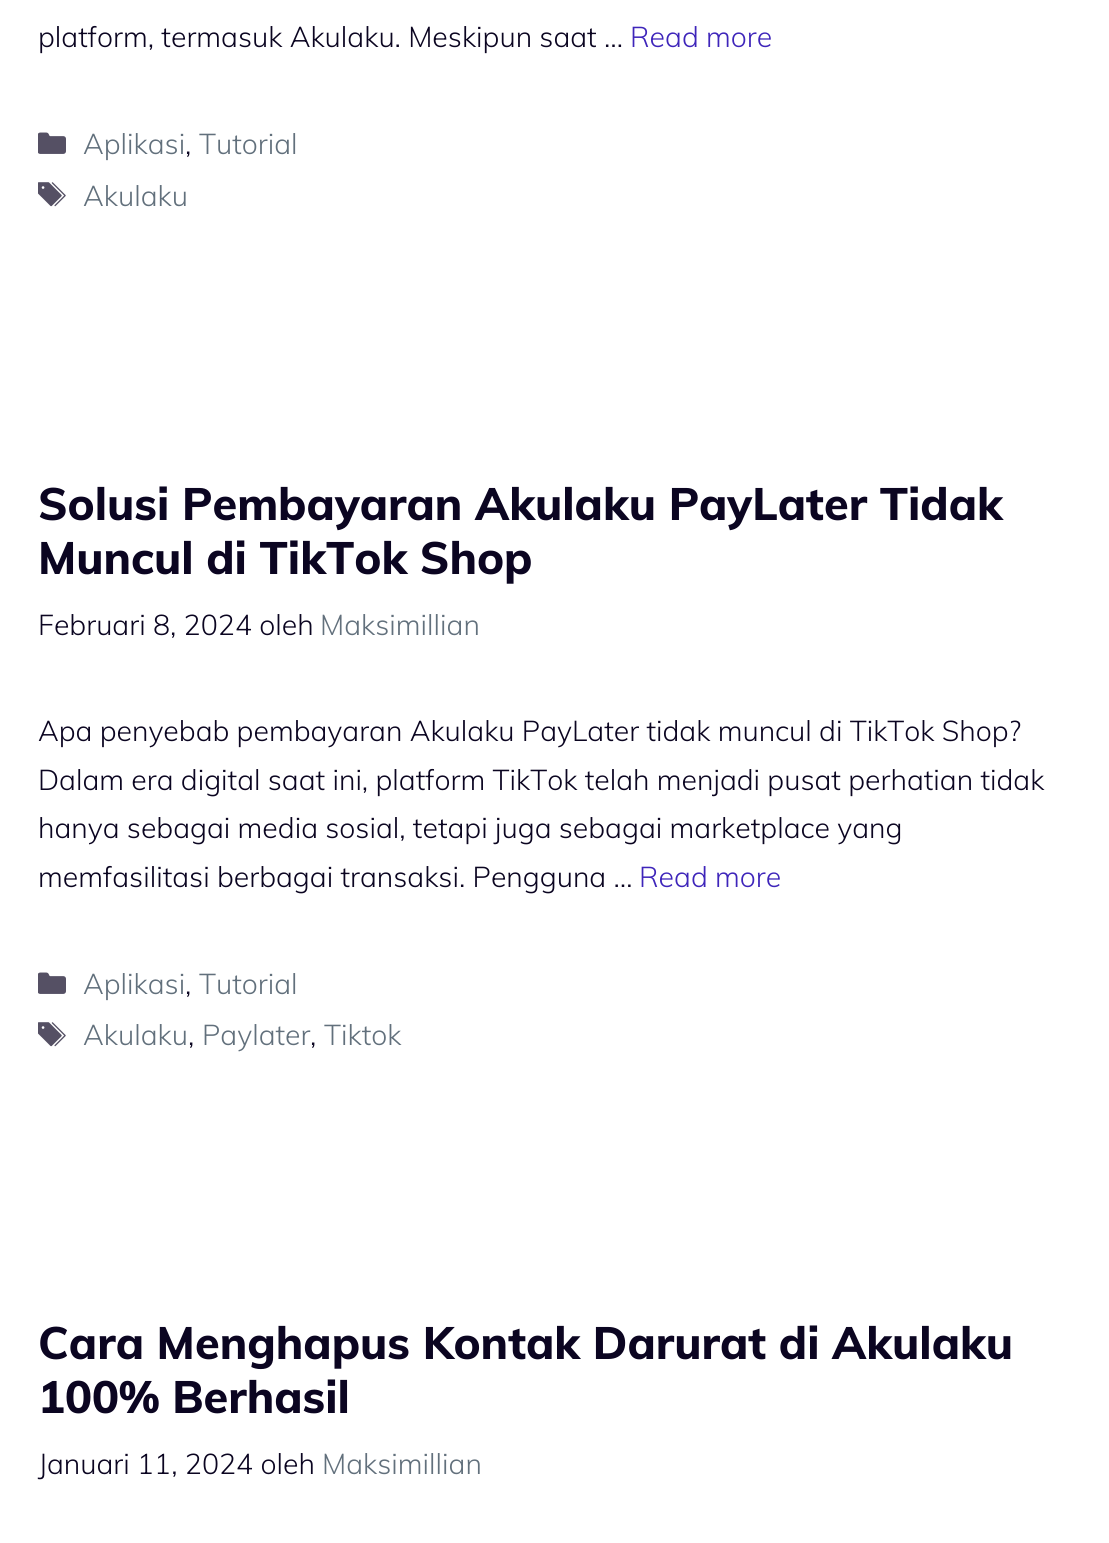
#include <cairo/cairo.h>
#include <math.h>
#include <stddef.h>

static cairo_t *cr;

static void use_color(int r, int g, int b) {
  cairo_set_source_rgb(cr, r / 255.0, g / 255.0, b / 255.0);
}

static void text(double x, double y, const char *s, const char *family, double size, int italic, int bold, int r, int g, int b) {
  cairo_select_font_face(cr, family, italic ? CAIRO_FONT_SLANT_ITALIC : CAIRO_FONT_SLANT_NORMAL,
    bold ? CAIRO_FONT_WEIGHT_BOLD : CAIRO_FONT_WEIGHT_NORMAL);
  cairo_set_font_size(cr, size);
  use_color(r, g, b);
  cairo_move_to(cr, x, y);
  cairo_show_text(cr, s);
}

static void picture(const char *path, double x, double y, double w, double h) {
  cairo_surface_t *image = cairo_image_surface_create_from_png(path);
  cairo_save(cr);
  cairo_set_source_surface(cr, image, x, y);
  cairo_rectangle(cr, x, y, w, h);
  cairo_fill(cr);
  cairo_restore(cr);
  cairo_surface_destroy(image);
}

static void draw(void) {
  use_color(255, 255, 255);
  cairo_paint(cr);
  picture("img_01.png", 38, 132, 28, 22);
  picture("img_02.png", 38, 182, 28, 25);
  picture("img_01.png", 38, 972, 28, 22);
  picture("img_02.png", 38, 1022, 28, 25);
  text(38, 47, "platform, termasuk Akulaku. Meskipun saat …", "Muli Light", 28.5, 0, 0, 11, 5, 33);
  text(630, 47, "Read more", "Muli Light", 28.5, 0, 0, 62, 37, 186);
  text(83, 154, "Aplikasi", "Muli Light", 28.5, 0, 0, 98, 112, 124);
  text(185, 154, ",", "Muli Light", 28.5, 0, 0, 11, 5, 33);
  text(199, 154, "Tutorial", "Muli Light", 28.5, 0, 0, 98, 112, 124);
  text(83, 206, "Akulaku", "Muli Light", 28.5, 0, 0, 98, 112, 124);
  text(38, 520, "Solusi Pembayaran Akulaku PayLater Tidak", "Muli ExtraBold", 45, 0, 0, 11, 5, 33);
  text(38, 574, "Muncul di TikTok Shop", "Muli ExtraBold", 45, 0, 0, 11, 5, 33);
  text(38, 635, "Februari 8, 2024 oleh", "Muli Light", 28.5, 0, 0, 11, 5, 33);
  text(320, 635, "Maksimillian", "Muli Light", 28.5, 0, 0, 98, 112, 124);
  text(38, 741, "Apa penyebab pembayaran Akulaku PayLater tidak muncul di TikTok Shop?", "Muli Light", 28.5, 0, 0, 11, 5, 33);
  text(38, 790, "Dalam era digital saat ini, platform TikTok telah menjadi pusat perhatian tidak", "Muli Light", 28.5, 0, 0, 11, 5, 33);
  text(38, 838, "hanya sebagai media sosial, tetapi juga sebagai marketplace yang", "Muli Light", 28.5, 0, 0, 11, 5, 33);
  text(38, 887, "memfasilitasi berbagai transaksi. Pengguna …", "Muli Light", 28.5, 0, 0, 11, 5, 33);
  text(639, 887, "Read more", "Muli Light", 28.5, 0, 0, 62, 37, 186);
  text(83, 994, "Aplikasi", "Muli Light", 28.5, 0, 0, 98, 112, 124);
  text(185, 994, ",", "Muli Light", 28.5, 0, 0, 11, 5, 33);
  text(199, 994, "Tutorial", "Muli Light", 28.5, 0, 0, 98, 112, 124);
  text(83, 1045, "Akulaku", "Muli Light", 28.5, 0, 0, 98, 112, 124);
  text(188, 1045, ",", "Muli Light", 28.5, 0, 0, 11, 5, 33);
  text(202, 1045, "Paylater", "Muli Light", 28.5, 0, 0, 98, 112, 124);
  text(310, 1045, ",", "Muli Light", 28.5, 0, 0, 11, 5, 33);
  text(324, 1045, "Tiktok", "Muli Light", 28.5, 0, 0, 98, 112, 124);
  text(38, 1359, "Cara Menghapus Kontak Darurat di Akulaku", "Muli ExtraBold", 45, 0, 0, 11, 5, 33);
  text(38, 1413, "100% Berhasil", "Muli ExtraBold", 45, 0, 0, 11, 5, 33);
  text(38, 1474, "Januari 11, 2024 oleh", "Muli Light", 28.5, 0, 0, 11, 5, 33);
  text(322, 1474, "Maksimillian", "Muli Light", 28.5, 0, 0, 98, 112, 124);
}

int main(void) {
  cairo_surface_t *surface = cairo_image_surface_create(CAIRO_FORMAT_RGB24, 1109, 1543);
  cr = cairo_create(surface);
  cairo_font_options_t *options = cairo_font_options_create();
  cairo_font_options_set_hint_metrics(options, CAIRO_HINT_METRICS_OFF);
  cairo_font_options_set_hint_style(options, CAIRO_HINT_STYLE_NONE);
  cairo_set_font_options(cr, options);
  cairo_set_miter_limit(cr, 4);
  draw();
  cairo_surface_write_to_png(surface, "out.png");
  cairo_font_options_destroy(options);
  cairo_destroy(cr);
  cairo_surface_destroy(surface);
  return 0;
}
